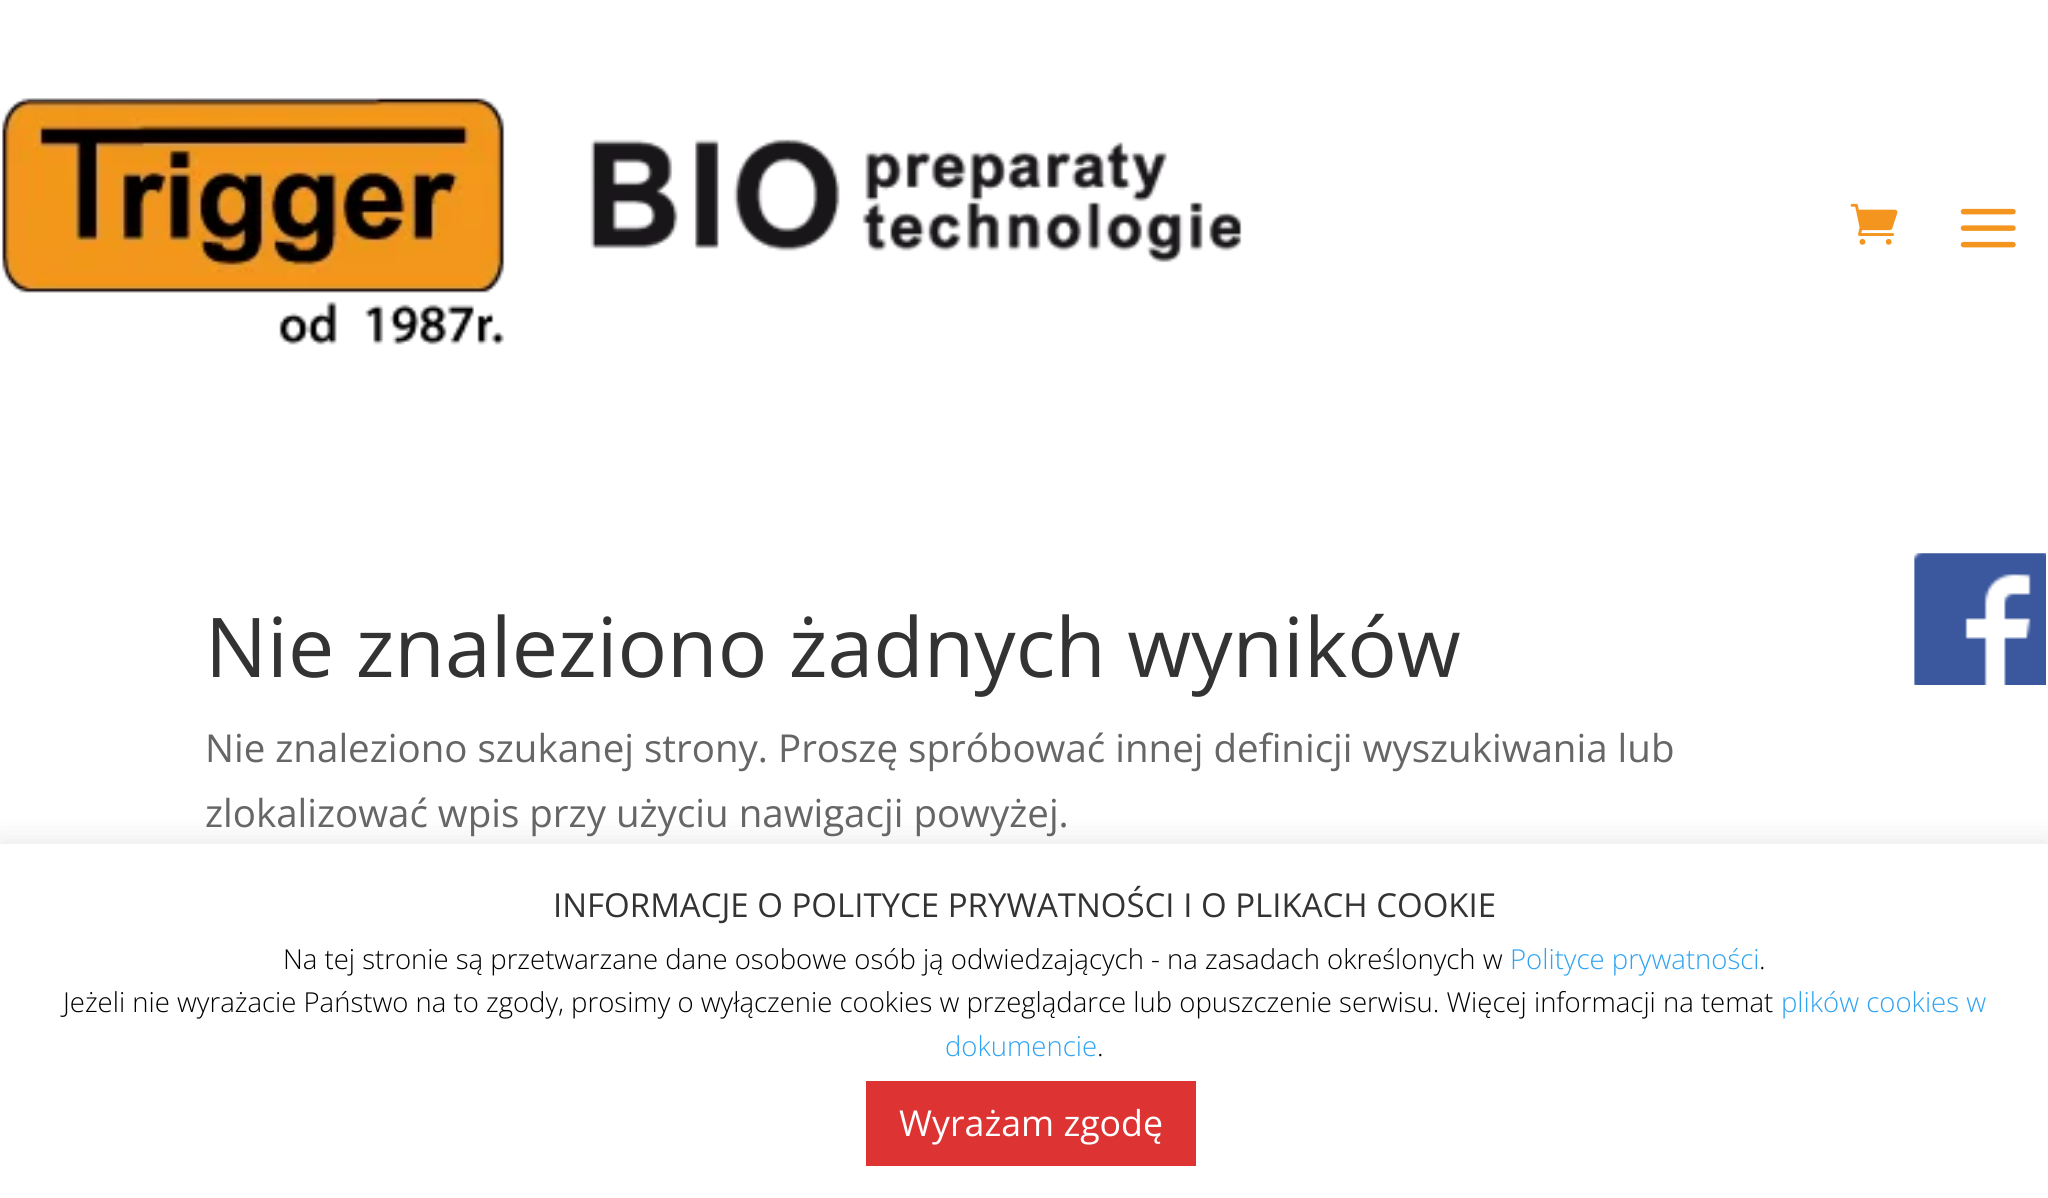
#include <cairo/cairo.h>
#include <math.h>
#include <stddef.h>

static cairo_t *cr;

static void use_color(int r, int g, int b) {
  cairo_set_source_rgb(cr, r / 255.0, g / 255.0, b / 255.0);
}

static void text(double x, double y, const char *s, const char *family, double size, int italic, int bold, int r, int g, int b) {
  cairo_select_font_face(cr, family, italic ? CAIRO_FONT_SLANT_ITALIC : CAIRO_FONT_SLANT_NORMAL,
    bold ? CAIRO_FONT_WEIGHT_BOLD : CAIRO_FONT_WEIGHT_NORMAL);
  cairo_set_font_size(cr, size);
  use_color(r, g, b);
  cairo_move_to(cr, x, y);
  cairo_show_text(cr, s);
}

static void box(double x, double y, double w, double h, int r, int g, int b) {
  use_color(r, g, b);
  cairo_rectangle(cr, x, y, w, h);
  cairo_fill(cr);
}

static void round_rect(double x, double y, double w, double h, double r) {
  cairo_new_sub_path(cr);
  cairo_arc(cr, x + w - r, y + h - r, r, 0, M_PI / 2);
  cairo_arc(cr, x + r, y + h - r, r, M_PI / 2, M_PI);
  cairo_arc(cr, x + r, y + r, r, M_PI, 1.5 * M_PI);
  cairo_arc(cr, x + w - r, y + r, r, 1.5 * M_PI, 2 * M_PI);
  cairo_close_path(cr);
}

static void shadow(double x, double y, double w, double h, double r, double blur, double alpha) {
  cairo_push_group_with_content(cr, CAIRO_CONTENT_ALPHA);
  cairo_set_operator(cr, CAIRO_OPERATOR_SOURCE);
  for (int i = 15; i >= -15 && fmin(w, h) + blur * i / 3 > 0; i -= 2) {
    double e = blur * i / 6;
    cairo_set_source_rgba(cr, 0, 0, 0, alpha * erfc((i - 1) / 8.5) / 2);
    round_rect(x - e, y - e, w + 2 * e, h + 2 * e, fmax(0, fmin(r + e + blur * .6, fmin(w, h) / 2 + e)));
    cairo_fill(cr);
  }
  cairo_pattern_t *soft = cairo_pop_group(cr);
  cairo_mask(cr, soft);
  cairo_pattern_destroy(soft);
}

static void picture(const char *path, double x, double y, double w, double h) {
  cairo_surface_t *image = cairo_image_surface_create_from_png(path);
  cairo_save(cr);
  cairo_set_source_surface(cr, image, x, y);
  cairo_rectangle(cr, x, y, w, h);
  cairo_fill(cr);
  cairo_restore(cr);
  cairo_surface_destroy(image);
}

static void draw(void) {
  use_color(255, 255, 255);
  cairo_paint(cr);
  picture("img_01.png", 2, 98, 1240, 247);
  picture("img_02.png", 1850, 203, 48, 42);
  picture("img_03.png", 1960, 208, 56, 40);
  picture("img_04.png", 1914, 553, 132, 132);
  use_color(172, 171, 171);
  shadow(0, 842, 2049, 354, 0, 14, 0.3);
  box(0, 844, 2048, 354, 255, 255, 255);
  box(866, 1081, 330, 85, 221, 51, 51);
  text(205, 677, "Nie znaleziono żadnych wyników", "Open Sans", 82.5, 0, 0, 51, 51, 51);
  text(205, 762, "Nie znaleziono szukanej strony. Proszę spróbować innej definicji wyszukiwania lub", "Open Sans", 38.5, 0, 0, 102, 102, 102);
  text(205, 827, "zlokalizować wpis przy użyciu nawigacji powyżej.", "Open Sans", 38.5, 0, 0, 102, 102, 102);
  text(553, 917, "INFORMACJE O POLITYCE PRYWATNOŚCI I O PLIKACH COOKIE", "Open Sans", 33, 0, 0, 51, 51, 51);
  text(283, 969, "Na tej stronie są przetwarzane dane osobowe osób ją odwiedzających - na zasadach określonych w", "Open Sans Light", 27.5, 0, 0, 0, 0, 0);
  text(1510, 969, "Polityce prywatności", "Open Sans Light", 27.5, 0, 0, 46, 163, 242);
  text(1759, 969, ".", "Open Sans Light", 27.5, 0, 0, 0, 0, 0);
  text(63, 1012, "Jeżeli nie wyrażacie Państwo na to zgody, prosimy o wyłączenie cookies w przeglądarce lub opuszczenie serwisu. Więcej informacji na temat", "Open Sans Light", 27.5, 0, 0, 0, 0, 0);
  text(1781, 1012, "plików cookies w", "Open Sans Light", 27.5, 0, 0, 46, 163, 242);
  text(945, 1056, "dokumencie", "Open Sans Light", 27.5, 0, 0, 46, 163, 242);
  text(1097, 1056, ".", "Open Sans Light", 27.5, 0, 0, 0, 0, 0);
  text(899, 1136, "Wyrażam zgodę", "Open Sans", 35.75, 0, 0, 255, 255, 255);
}

int main(void) {
  cairo_surface_t *surface = cairo_image_surface_create(CAIRO_FORMAT_RGB24, 2048, 1198);
  cr = cairo_create(surface);
  cairo_font_options_t *options = cairo_font_options_create();
  cairo_font_options_set_hint_metrics(options, CAIRO_HINT_METRICS_OFF);
  cairo_font_options_set_hint_style(options, CAIRO_HINT_STYLE_NONE);
  cairo_set_font_options(cr, options);
  cairo_set_miter_limit(cr, 4);
  draw();
  cairo_surface_write_to_png(surface, "out.png");
  cairo_font_options_destroy(options);
  cairo_destroy(cr);
  cairo_surface_destroy(surface);
  return 0;
}
